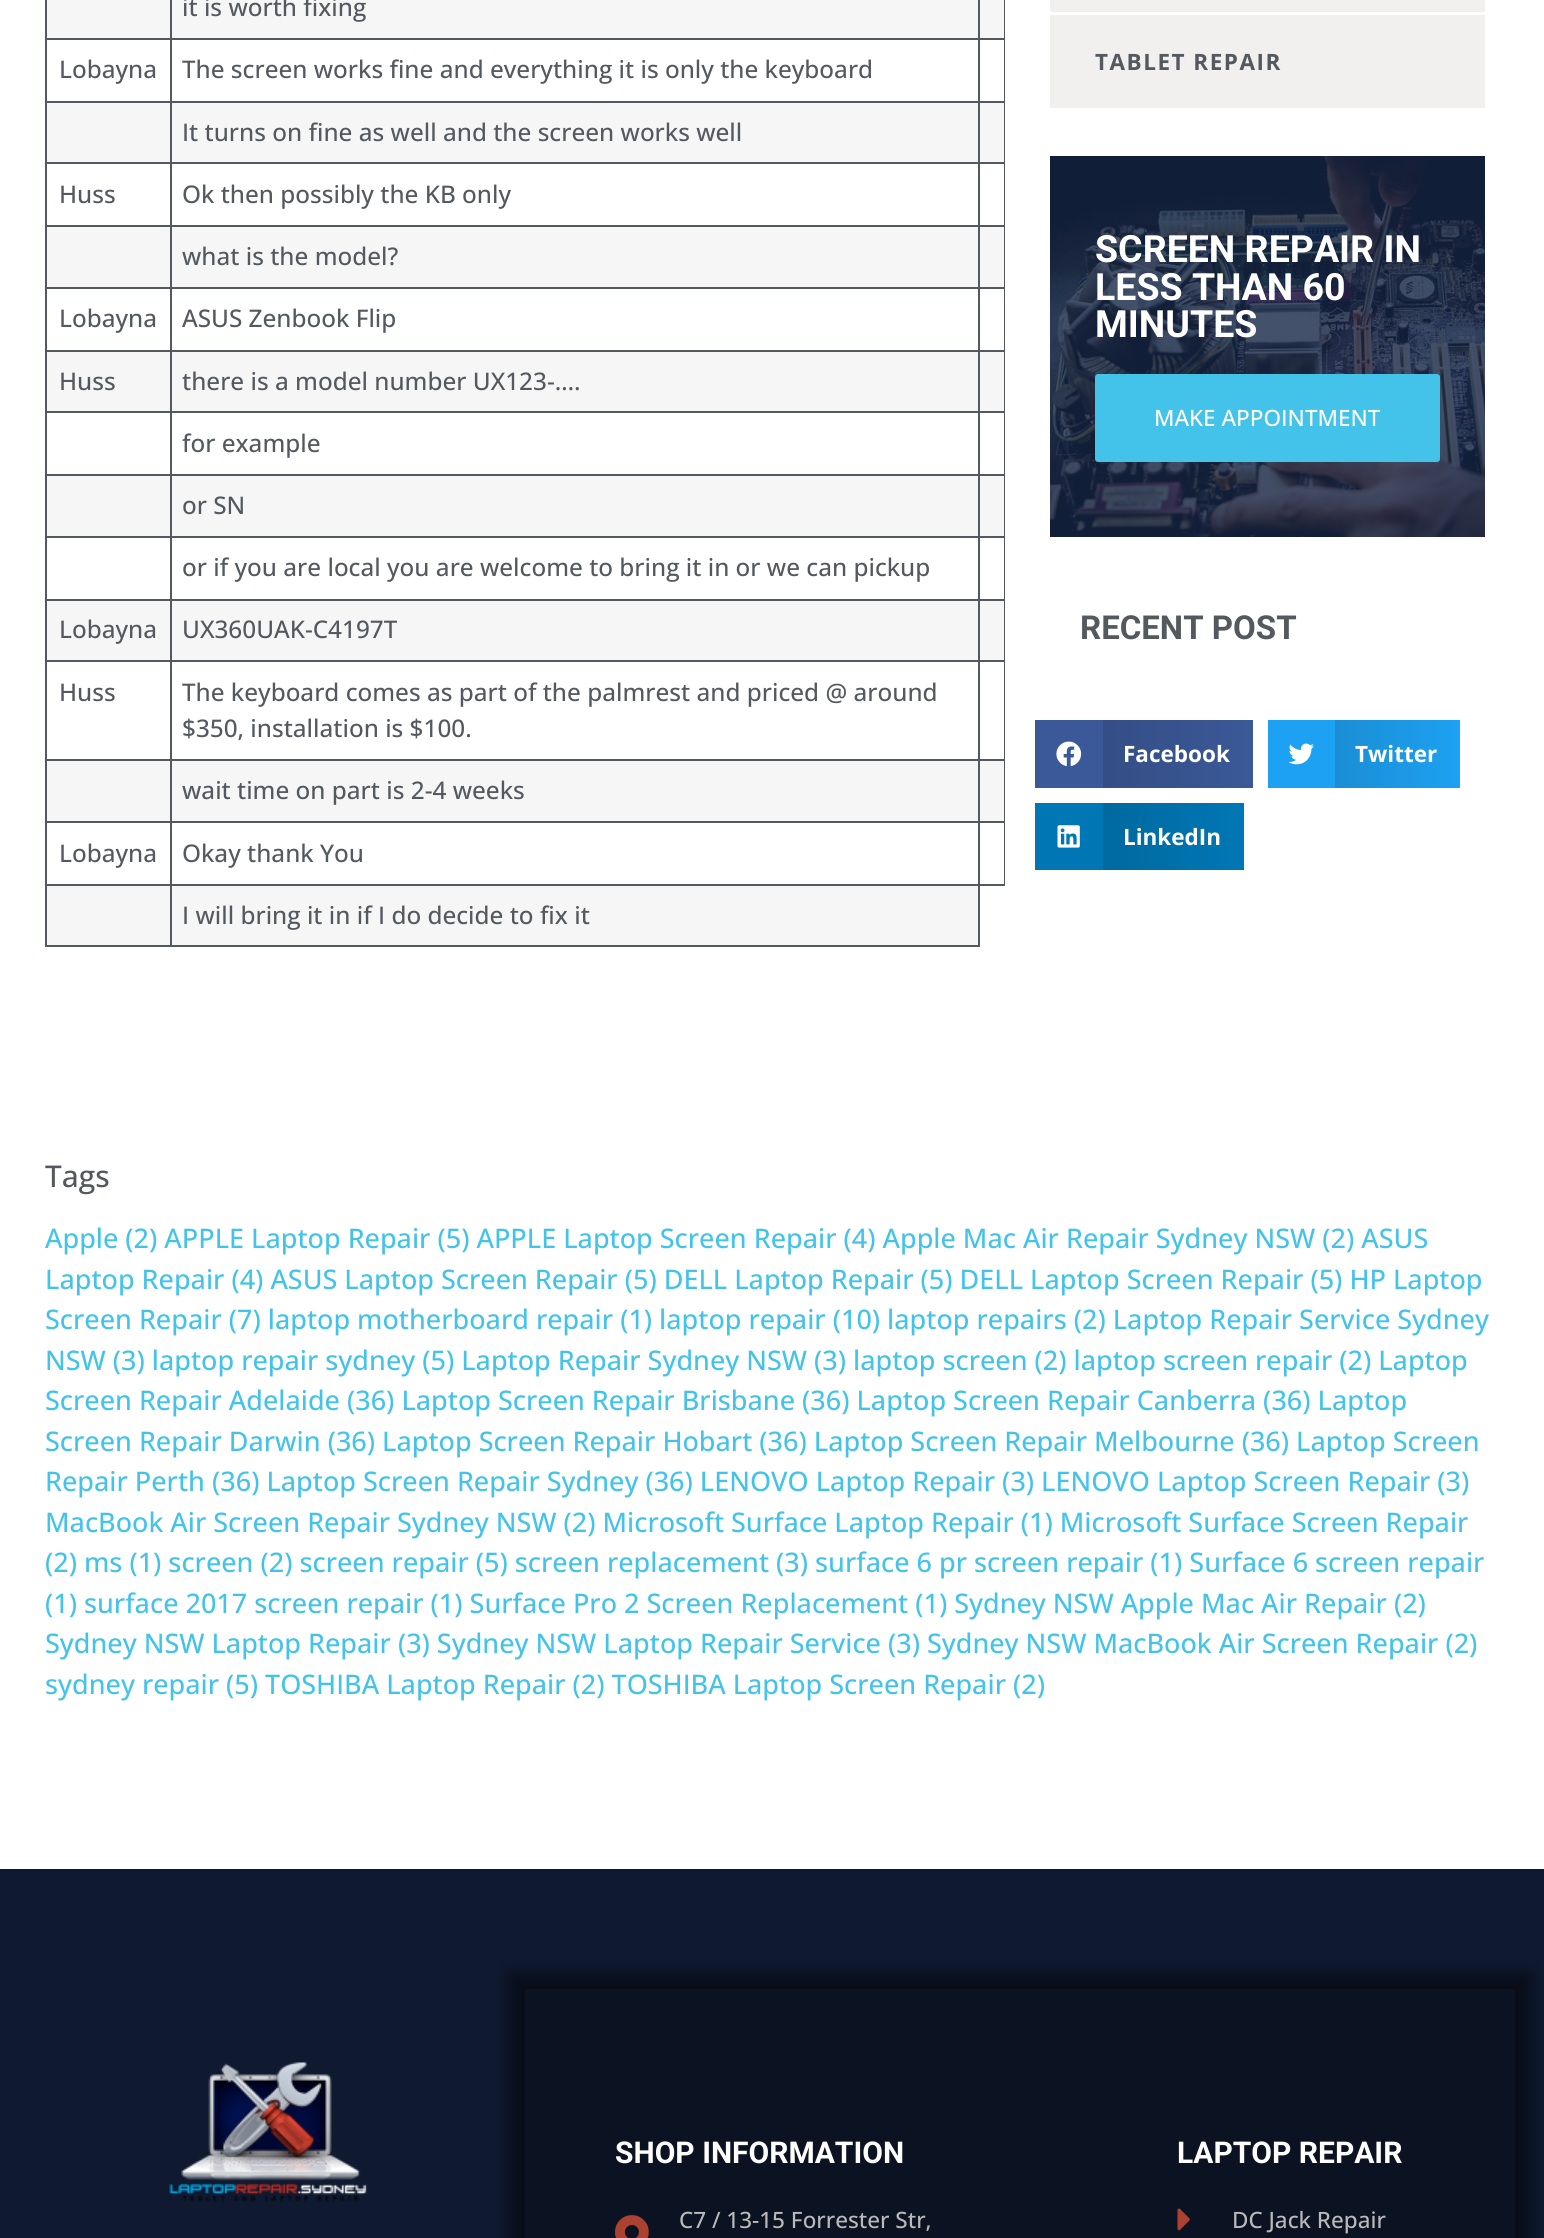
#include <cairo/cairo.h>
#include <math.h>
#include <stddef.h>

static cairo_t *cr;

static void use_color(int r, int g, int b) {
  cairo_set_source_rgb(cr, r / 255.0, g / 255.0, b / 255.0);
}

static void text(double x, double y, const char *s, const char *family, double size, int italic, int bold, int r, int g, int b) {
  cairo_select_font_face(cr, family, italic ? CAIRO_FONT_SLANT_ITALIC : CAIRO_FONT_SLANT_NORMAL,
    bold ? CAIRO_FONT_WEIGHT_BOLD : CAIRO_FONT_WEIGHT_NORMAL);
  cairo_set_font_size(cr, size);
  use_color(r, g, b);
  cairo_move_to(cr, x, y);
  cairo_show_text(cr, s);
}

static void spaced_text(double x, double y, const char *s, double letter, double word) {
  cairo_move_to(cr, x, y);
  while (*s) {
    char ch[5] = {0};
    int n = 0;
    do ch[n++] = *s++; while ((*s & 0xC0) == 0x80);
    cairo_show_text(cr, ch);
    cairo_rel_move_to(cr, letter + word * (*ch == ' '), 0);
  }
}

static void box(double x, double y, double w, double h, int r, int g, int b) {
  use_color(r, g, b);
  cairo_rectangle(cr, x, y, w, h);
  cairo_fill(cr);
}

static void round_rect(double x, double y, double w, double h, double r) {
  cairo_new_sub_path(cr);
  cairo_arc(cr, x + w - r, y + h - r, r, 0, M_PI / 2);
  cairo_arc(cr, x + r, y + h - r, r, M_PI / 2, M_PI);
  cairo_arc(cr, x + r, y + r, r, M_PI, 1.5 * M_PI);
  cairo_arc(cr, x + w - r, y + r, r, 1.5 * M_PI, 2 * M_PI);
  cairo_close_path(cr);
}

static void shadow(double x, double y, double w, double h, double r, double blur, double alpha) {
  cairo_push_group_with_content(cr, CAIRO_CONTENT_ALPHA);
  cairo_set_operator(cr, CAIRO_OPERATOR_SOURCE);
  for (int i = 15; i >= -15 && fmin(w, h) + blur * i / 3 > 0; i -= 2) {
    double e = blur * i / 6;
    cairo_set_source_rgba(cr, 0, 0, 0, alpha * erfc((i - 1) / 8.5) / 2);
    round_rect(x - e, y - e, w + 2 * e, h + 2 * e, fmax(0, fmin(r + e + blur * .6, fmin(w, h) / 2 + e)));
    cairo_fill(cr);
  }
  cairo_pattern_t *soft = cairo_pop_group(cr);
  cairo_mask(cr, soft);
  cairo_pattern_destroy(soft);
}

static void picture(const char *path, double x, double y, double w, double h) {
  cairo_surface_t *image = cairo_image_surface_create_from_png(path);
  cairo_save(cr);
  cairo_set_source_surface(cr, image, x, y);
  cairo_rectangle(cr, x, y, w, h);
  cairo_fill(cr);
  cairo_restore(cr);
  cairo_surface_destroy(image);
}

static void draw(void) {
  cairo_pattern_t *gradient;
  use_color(255, 255, 255);
  cairo_paint(cr);
  box(47, 0, 123, 38, 246, 246, 246);
  box(172, 0, 806, 38, 246, 246, 246);
  box(978, 38, 27, 2, 84, 89, 95);
  box(978, 101, 27, 2, 84, 89, 95);
  box(978, 162, 27, 2, 84, 89, 95);
  box(978, 225, 27, 2, 84, 89, 95);
  box(978, 287, 27, 2, 84, 89, 95);
  box(978, 350, 27, 2, 84, 89, 95);
  box(978, 411, 27, 2, 84, 89, 95);
  box(978, 474, 27, 2, 84, 89, 95);
  box(978, 536, 27, 2, 84, 89, 95);
  box(978, 599, 27, 2, 84, 89, 95);
  box(978, 660, 27, 2, 84, 89, 95);
  box(978, 759, 27, 2, 84, 89, 95);
  box(978, 821, 27, 2, 84, 89, 95);
  box(1004, 821, 1, 64, 84, 89, 95);
  box(170, 884, 810, 2, 84, 89, 95);
  box(978, 884, 2, 63, 84, 89, 95);
  box(978, 884, 27, 2, 84, 89, 95);
  box(978, 821, 2, 64, 84, 89, 95);
  box(170, 821, 810, 2, 84, 89, 95);
  box(978, 759, 2, 63, 84, 89, 95);
  box(170, 759, 810, 2, 84, 89, 95);
  box(978, 660, 2, 101, 84, 89, 95);
  box(170, 660, 810, 2, 84, 89, 95);
  box(978, 599, 2, 63, 84, 89, 95);
  box(170, 599, 810, 2, 84, 89, 95);
  box(978, 536, 2, 64, 84, 89, 95);
  box(170, 536, 810, 2, 84, 89, 95);
  box(978, 474, 2, 63, 84, 89, 95);
  box(170, 474, 810, 2, 84, 89, 95);
  box(978, 411, 2, 65, 84, 89, 95);
  box(170, 411, 810, 2, 84, 89, 95);
  box(978, 350, 2, 63, 84, 89, 95);
  box(170, 350, 810, 2, 84, 89, 95);
  box(978, 287, 2, 64, 84, 89, 95);
  box(170, 287, 810, 2, 84, 89, 95);
  box(978, 225, 2, 63, 84, 89, 95);
  box(170, 225, 810, 2, 84, 89, 95);
  box(978, 162, 2, 65, 84, 89, 95);
  box(170, 162, 810, 2, 84, 89, 95);
  box(978, 101, 2, 63, 84, 89, 95);
  box(170, 101, 810, 2, 84, 89, 95);
  box(978, 38, 2, 64, 84, 89, 95);
  box(170, 38, 810, 2, 84, 89, 95);
  box(170, 945, 810, 2, 84, 89, 95);
  box(170, 884, 2, 63, 84, 89, 95);
  box(45, 884, 126, 2, 84, 89, 95);
  box(170, 821, 2, 64, 84, 89, 95);
  box(45, 821, 126, 2, 84, 89, 95);
  box(170, 759, 2, 63, 84, 89, 95);
  box(45, 759, 126, 2, 84, 89, 95);
  box(170, 660, 2, 101, 84, 89, 95);
  box(45, 660, 126, 2, 84, 89, 95);
  box(170, 599, 2, 63, 84, 89, 95);
  box(45, 599, 126, 2, 84, 89, 95);
  box(170, 536, 2, 64, 84, 89, 95);
  box(45, 536, 126, 2, 84, 89, 95);
  box(170, 474, 2, 63, 84, 89, 95);
  box(45, 474, 126, 2, 84, 89, 95);
  box(170, 411, 2, 65, 84, 89, 95);
  box(45, 411, 126, 2, 84, 89, 95);
  box(170, 350, 2, 63, 84, 89, 95);
  box(45, 350, 126, 2, 84, 89, 95);
  box(170, 287, 2, 64, 84, 89, 95);
  box(45, 287, 126, 2, 84, 89, 95);
  box(170, 225, 2, 63, 84, 89, 95);
  box(45, 225, 126, 2, 84, 89, 95);
  box(170, 162, 2, 65, 84, 89, 95);
  box(45, 162, 126, 2, 84, 89, 95);
  box(170, 101, 2, 63, 84, 89, 95);
  box(45, 101, 126, 2, 84, 89, 95);
  box(170, 38, 2, 64, 84, 89, 95);
  box(45, 38, 126, 2, 84, 89, 95);
  box(170, 0, 2, 39, 84, 89, 95);
  box(980, 0, 24, 38, 246, 246, 246);
  box(978, 0, 2, 39, 84, 89, 95);
  box(45, 945, 126, 2, 84, 89, 95);
  box(45, 884, 2, 63, 84, 89, 95);
  box(45, 821, 2, 64, 84, 89, 95);
  box(45, 759, 2, 63, 84, 89, 95);
  box(45, 660, 2, 101, 84, 89, 95);
  box(45, 599, 2, 63, 84, 89, 95);
  box(45, 536, 2, 64, 84, 89, 95);
  box(45, 474, 2, 63, 84, 89, 95);
  box(45, 411, 2, 65, 84, 89, 95);
  box(45, 350, 2, 63, 84, 89, 95);
  box(45, 287, 2, 64, 84, 89, 95);
  box(45, 225, 2, 63, 84, 89, 95);
  box(45, 162, 2, 65, 84, 89, 95);
  box(45, 101, 2, 63, 84, 89, 95);
  box(45, 0, 2, 102, 84, 89, 95);
  box(1004, 759, 1, 63, 84, 89, 95);
  box(1004, 660, 1, 101, 84, 89, 95);
  box(1004, 599, 1, 63, 84, 89, 95);
  box(1004, 536, 1, 64, 84, 89, 95);
  box(1004, 474, 1, 63, 84, 89, 95);
  box(1004, 411, 1, 65, 84, 89, 95);
  box(1004, 350, 1, 63, 84, 89, 95);
  box(1004, 287, 1, 64, 84, 89, 95);
  box(1004, 225, 1, 63, 84, 89, 95);
  box(1004, 162, 1, 65, 84, 89, 95);
  box(1004, 101, 1, 63, 84, 89, 95);
  box(1004, 0, 1, 102, 84, 89, 95);
  box(47, 103, 123, 59, 246, 246, 246);
  box(172, 103, 806, 59, 246, 246, 246);
  box(980, 103, 24, 59, 246, 246, 246);
  box(47, 227, 123, 60, 246, 246, 246);
  box(172, 227, 806, 60, 246, 246, 246);
  box(980, 227, 24, 60, 246, 246, 246);
  box(47, 352, 123, 59, 246, 246, 246);
  box(172, 352, 806, 59, 246, 246, 246);
  box(980, 352, 24, 59, 246, 246, 246);
  box(47, 476, 123, 60, 246, 246, 246);
  box(172, 476, 806, 60, 246, 246, 246);
  box(980, 476, 24, 60, 246, 246, 246);
  box(47, 601, 123, 59, 246, 246, 246);
  box(172, 601, 806, 59, 246, 246, 246);
  box(980, 601, 24, 59, 246, 246, 246);
  box(47, 761, 123, 60, 246, 246, 246);
  box(172, 761, 806, 60, 246, 246, 246);
  box(980, 761, 24, 60, 246, 246, 246);
  box(47, 886, 123, 59, 246, 246, 246);
  box(172, 886, 806, 59, 246, 246, 246);
  box(1050, 0, 435, 12, 242, 239, 239);
  box(1050, 15, 435, 93, 242, 239, 239);
  picture("img_01.png", 1050, 156, 435, 381);
  use_color(67, 195, 234);
  round_rect(1096.5, 375.5, 342, 85, 1.5);
  cairo_fill_preserve(cr);
  cairo_set_line_width(cr, 3);
  cairo_stroke(cr);
  box(1035, 720, 68, 68, 59, 89, 152);
  picture("img_02.png", 1056, 741, 26, 26);
  gradient = cairo_pattern_create_linear(1103, 754, 1253, 754);
  cairo_pattern_add_color_stop_rgba(gradient, 0, 0.204, 0.306, 0.525, 1);
  cairo_pattern_add_color_stop_rgba(gradient, 1, 0.231, 0.349, 0.596, 1);
  cairo_set_source(cr, gradient);
  cairo_pattern_destroy(gradient);
  cairo_rectangle(cr, 1103, 720, 150, 68);
  cairo_fill(cr);
  box(1268, 720, 67, 68, 29, 161, 242);
  picture("img_03.png", 1288, 743, 26, 22);
  gradient = cairo_pattern_create_linear(1335, 754, 1460, 754);
  cairo_pattern_add_color_stop_rgba(gradient, 0, 0.102, 0.557, 0.835, 1);
  cairo_pattern_add_color_stop_rgba(gradient, 1, 0.114, 0.631, 0.949, 1);
  cairo_set_source(cr, gradient);
  cairo_pattern_destroy(gradient);
  cairo_rectangle(cr, 1335, 720, 125, 68);
  cairo_fill(cr);
  box(1035, 803, 68, 67, 0, 119, 181);
  picture("img_04.png", 1057, 825, 23, 23);
  gradient = cairo_pattern_create_linear(1103, 836, 1244, 836);
  cairo_pattern_add_color_stop_rgba(gradient, 0, 0, 0.412, 0.624, 1);
  cairo_pattern_add_color_stop_rgba(gradient, 1, 0, 0.467, 0.71, 1);
  cairo_set_source(cr, gradient);
  cairo_pattern_destroy(gradient);
  cairo_rectangle(cr, 1103, 803, 141, 67);
  cairo_fill(cr);
  box(0, 1869, 1544, 369, 15, 25, 47);
  picture("img_05.png", 169, 2062, 198, 140);
  use_color(0, 0, 0);
  shadow(510, 1974, 1020, 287, 0, 7.5, 0.5);
  box(525, 1989, 990, 249, 11, 19, 34);
  picture("img_06.png", 615, 2215, 34, 23);
  picture("img_07.png", 1177, 2208, 13, 23);
  text(182, 16, "it is worth fixing", "Open Sans Medium", 24.3, 0, 0, 84, 89, 95);
  text(59, 78, "Lobayna", "Open Sans Medium", 24.3, 0, 0, 84, 89, 95);
  text(182, 78, "The screen works fine and everything it is only the keyboard", "Open Sans Medium", 24.3, 0, 0, 84, 89, 95);
  text(182, 141, "It turns on fine as well and the screen works well", "Open Sans Medium", 24.3, 0, 0, 84, 89, 95);
  text(59, 203, "Huss", "Open Sans Medium", 24.3, 0, 0, 84, 89, 95);
  text(182, 203, "Ok then possibly the KB only", "Open Sans Medium", 24.3, 0, 0, 84, 89, 95);
  text(182, 265, "what is the model?", "Open Sans Medium", 24.3, 0, 0, 84, 89, 95);
  text(59, 327, "Lobayna", "Open Sans Medium", 24.3, 0, 0, 84, 89, 95);
  text(182, 327, "ASUS Zenbook Flip", "Open Sans Medium", 24.3, 0, 0, 84, 89, 95);
  text(59, 390, "Huss", "Open Sans Medium", 24.3, 0, 0, 84, 89, 95);
  text(182, 390, "there is a model number UX123-….", "Open Sans Medium", 24.3, 0, 0, 84, 89, 95);
  text(182, 452, "for example", "Open Sans Medium", 24.3, 0, 0, 84, 89, 95);
  text(182, 514, "or SN", "Open Sans Medium", 24.3, 0, 0, 84, 89, 95);
  text(182, 576, "or if you are local you are welcome to bring it in or we can pickup", "Open Sans Medium", 24.3, 0, 0, 84, 89, 95);
  text(59, 638, "Lobayna", "Open Sans Medium", 24.3, 0, 0, 84, 89, 95);
  text(182, 638, "UX360UAK-C4197T", "Open Sans Medium", 24.3, 0, 0, 84, 89, 95);
  text(59, 701, "Huss", "Open Sans Medium", 24.3, 0, 0, 84, 89, 95);
  text(182, 701, "The keyboard comes as part of the palmrest and priced @ around", "Open Sans Medium", 24.3, 0, 0, 84, 89, 95);
  text(182, 737, "$350, installation is $100.", "Open Sans Medium", 24.3, 0, 0, 84, 89, 95);
  text(182, 799, "wait time on part is 2-4 weeks", "Open Sans Medium", 24.3, 0, 0, 84, 89, 95);
  text(59, 862, "Lobayna", "Open Sans Medium", 24.3, 0, 0, 84, 89, 95);
  text(182, 862, "Okay thank You", "Open Sans Medium", 24.3, 0, 0, 84, 89, 95);
  text(182, 924, "I will bring it in if I do decide to fix it", "Open Sans Medium", 24.3, 0, 0, 84, 89, 95);
  cairo_select_font_face(cr, "Open Sans", CAIRO_FONT_SLANT_NORMAL, CAIRO_FONT_WEIGHT_BOLD);
  cairo_set_font_size(cr, 22.5);
  spaced_text(1095, 70, "TABLET REPAIR", 1.5, 0);
  text(1095, 262, "SCREEN REPAIR IN", "Roboto", 37.5, 0, 1, 255, 255, 255);
  text(1095, 300, "LESS THAN 60", "Roboto", 37.5, 0, 1, 255, 255, 255);
  text(1095, 337, "MINUTES", "Roboto", 37.5, 0, 1, 255, 255, 255);
  text(1154, 426, "MAKE APPOINTMENT", "Open Sans Medium", 22.5, 0, 0, 255, 255, 255);
  text(1080, 639, "RECENT POST", "Roboto", 33, 0, 1, 84, 89, 95);
  text(1123, 762, "Facebook", "Open Sans", 22.5, 0, 1, 255, 255, 255);
  text(1355, 762, "Twitter", "Open Sans", 22.5, 0, 1, 255, 255, 255);
  text(1123, 845, "LinkedIn", "Open Sans", 22.5, 0, 1, 255, 255, 255);
  text(45, 1187, "Tags", "Open Sans Medium", 30, 0, 0, 84, 89, 95);
  text(45, 1248, "Apple (2) APPLE Laptop Repair (5) APPLE Laptop Screen Repair (4) Apple Mac Air Repair Sydney NSW (2) ASUS", "Open Sans Medium", 27, 0, 0, 67, 195, 234);
  text(45, 1289, "Laptop Repair (4) ASUS Laptop Screen Repair (5) DELL Laptop Repair (5) DELL Laptop Screen Repair (5) HP Laptop", "Open Sans Medium", 27, 0, 0, 67, 195, 234);
  text(45, 1329, "Screen Repair (7) laptop motherboard repair (1) laptop repair (10) laptop repairs (2) Laptop Repair Service Sydney", "Open Sans Medium", 27, 0, 0, 67, 195, 234);
  text(45, 1370, "NSW (3) laptop repair sydney (5) Laptop Repair Sydney NSW (3) laptop screen (2) laptop screen repair (2) Laptop", "Open Sans Medium", 27, 0, 0, 67, 195, 234);
  text(45, 1410, "Screen Repair Adelaide (36) Laptop Screen Repair Brisbane (36) Laptop Screen Repair Canberra (36) Laptop", "Open Sans Medium", 27, 0, 0, 67, 195, 234);
  text(45, 1451, "Screen Repair Darwin (36) Laptop Screen Repair Hobart (36) Laptop Screen Repair Melbourne (36) Laptop Screen", "Open Sans Medium", 27, 0, 0, 67, 195, 234);
  text(45, 1491, "Repair Perth (36) Laptop Screen Repair Sydney (36) LENOVO Laptop Repair (3) LENOVO Laptop Screen Repair (3)", "Open Sans Medium", 27, 0, 0, 67, 195, 234);
  text(45, 1532, "MacBook Air Screen Repair Sydney NSW (2) Microsoft Surface Laptop Repair (1) Microsoft Surface Screen Repair", "Open Sans Medium", 27, 0, 0, 67, 195, 234);
  text(45, 1572, "(2) ms (1) screen (2) screen repair (5) screen replacement (3) surface 6 pr screen repair (1) Surface 6 screen repair", "Open Sans Medium", 27, 0, 0, 67, 195, 234);
  text(45, 1613, "(1) surface 2017 screen repair (1) Surface Pro 2 Screen Replacement (1) Sydney NSW Apple Mac Air Repair (2)", "Open Sans Medium", 27, 0, 0, 67, 195, 234);
  text(45, 1653, "Sydney NSW Laptop Repair (3) Sydney NSW Laptop Repair Service (3) Sydney NSW MacBook Air Screen Repair (2)", "Open Sans Medium", 27, 0, 0, 67, 195, 234);
  text(45, 1694, "sydney repair (5) TOSHIBA Laptop Repair (2) TOSHIBA Laptop Screen Repair (2)", "Open Sans Medium", 27, 0, 0, 67, 195, 234);
  text(615, 2163, "SHOP INFORMATION", "Roboto", 30, 0, 1, 255, 255, 255);
  text(679, 2228, "C7 / 13-15 Forrester Str,", "Open Sans Medium", 22.5, 0, 0, 186, 186, 186);
  text(1177, 2163, "LAPTOP REPAIR", "Roboto", 30, 0, 1, 255, 255, 255);
  text(1232, 2228, "DC Jack Repair", "Open Sans Medium", 22.5, 0, 0, 186, 186, 186);
}

int main(void) {
  cairo_surface_t *surface = cairo_image_surface_create(CAIRO_FORMAT_RGB24, 1544, 2238);
  cr = cairo_create(surface);
  cairo_font_options_t *options = cairo_font_options_create();
  cairo_font_options_set_hint_metrics(options, CAIRO_HINT_METRICS_OFF);
  cairo_font_options_set_hint_style(options, CAIRO_HINT_STYLE_NONE);
  cairo_set_font_options(cr, options);
  cairo_set_miter_limit(cr, 4);
  draw();
  cairo_surface_write_to_png(surface, "out.png");
  cairo_font_options_destroy(options);
  cairo_destroy(cr);
  cairo_surface_destroy(surface);
  return 0;
}
